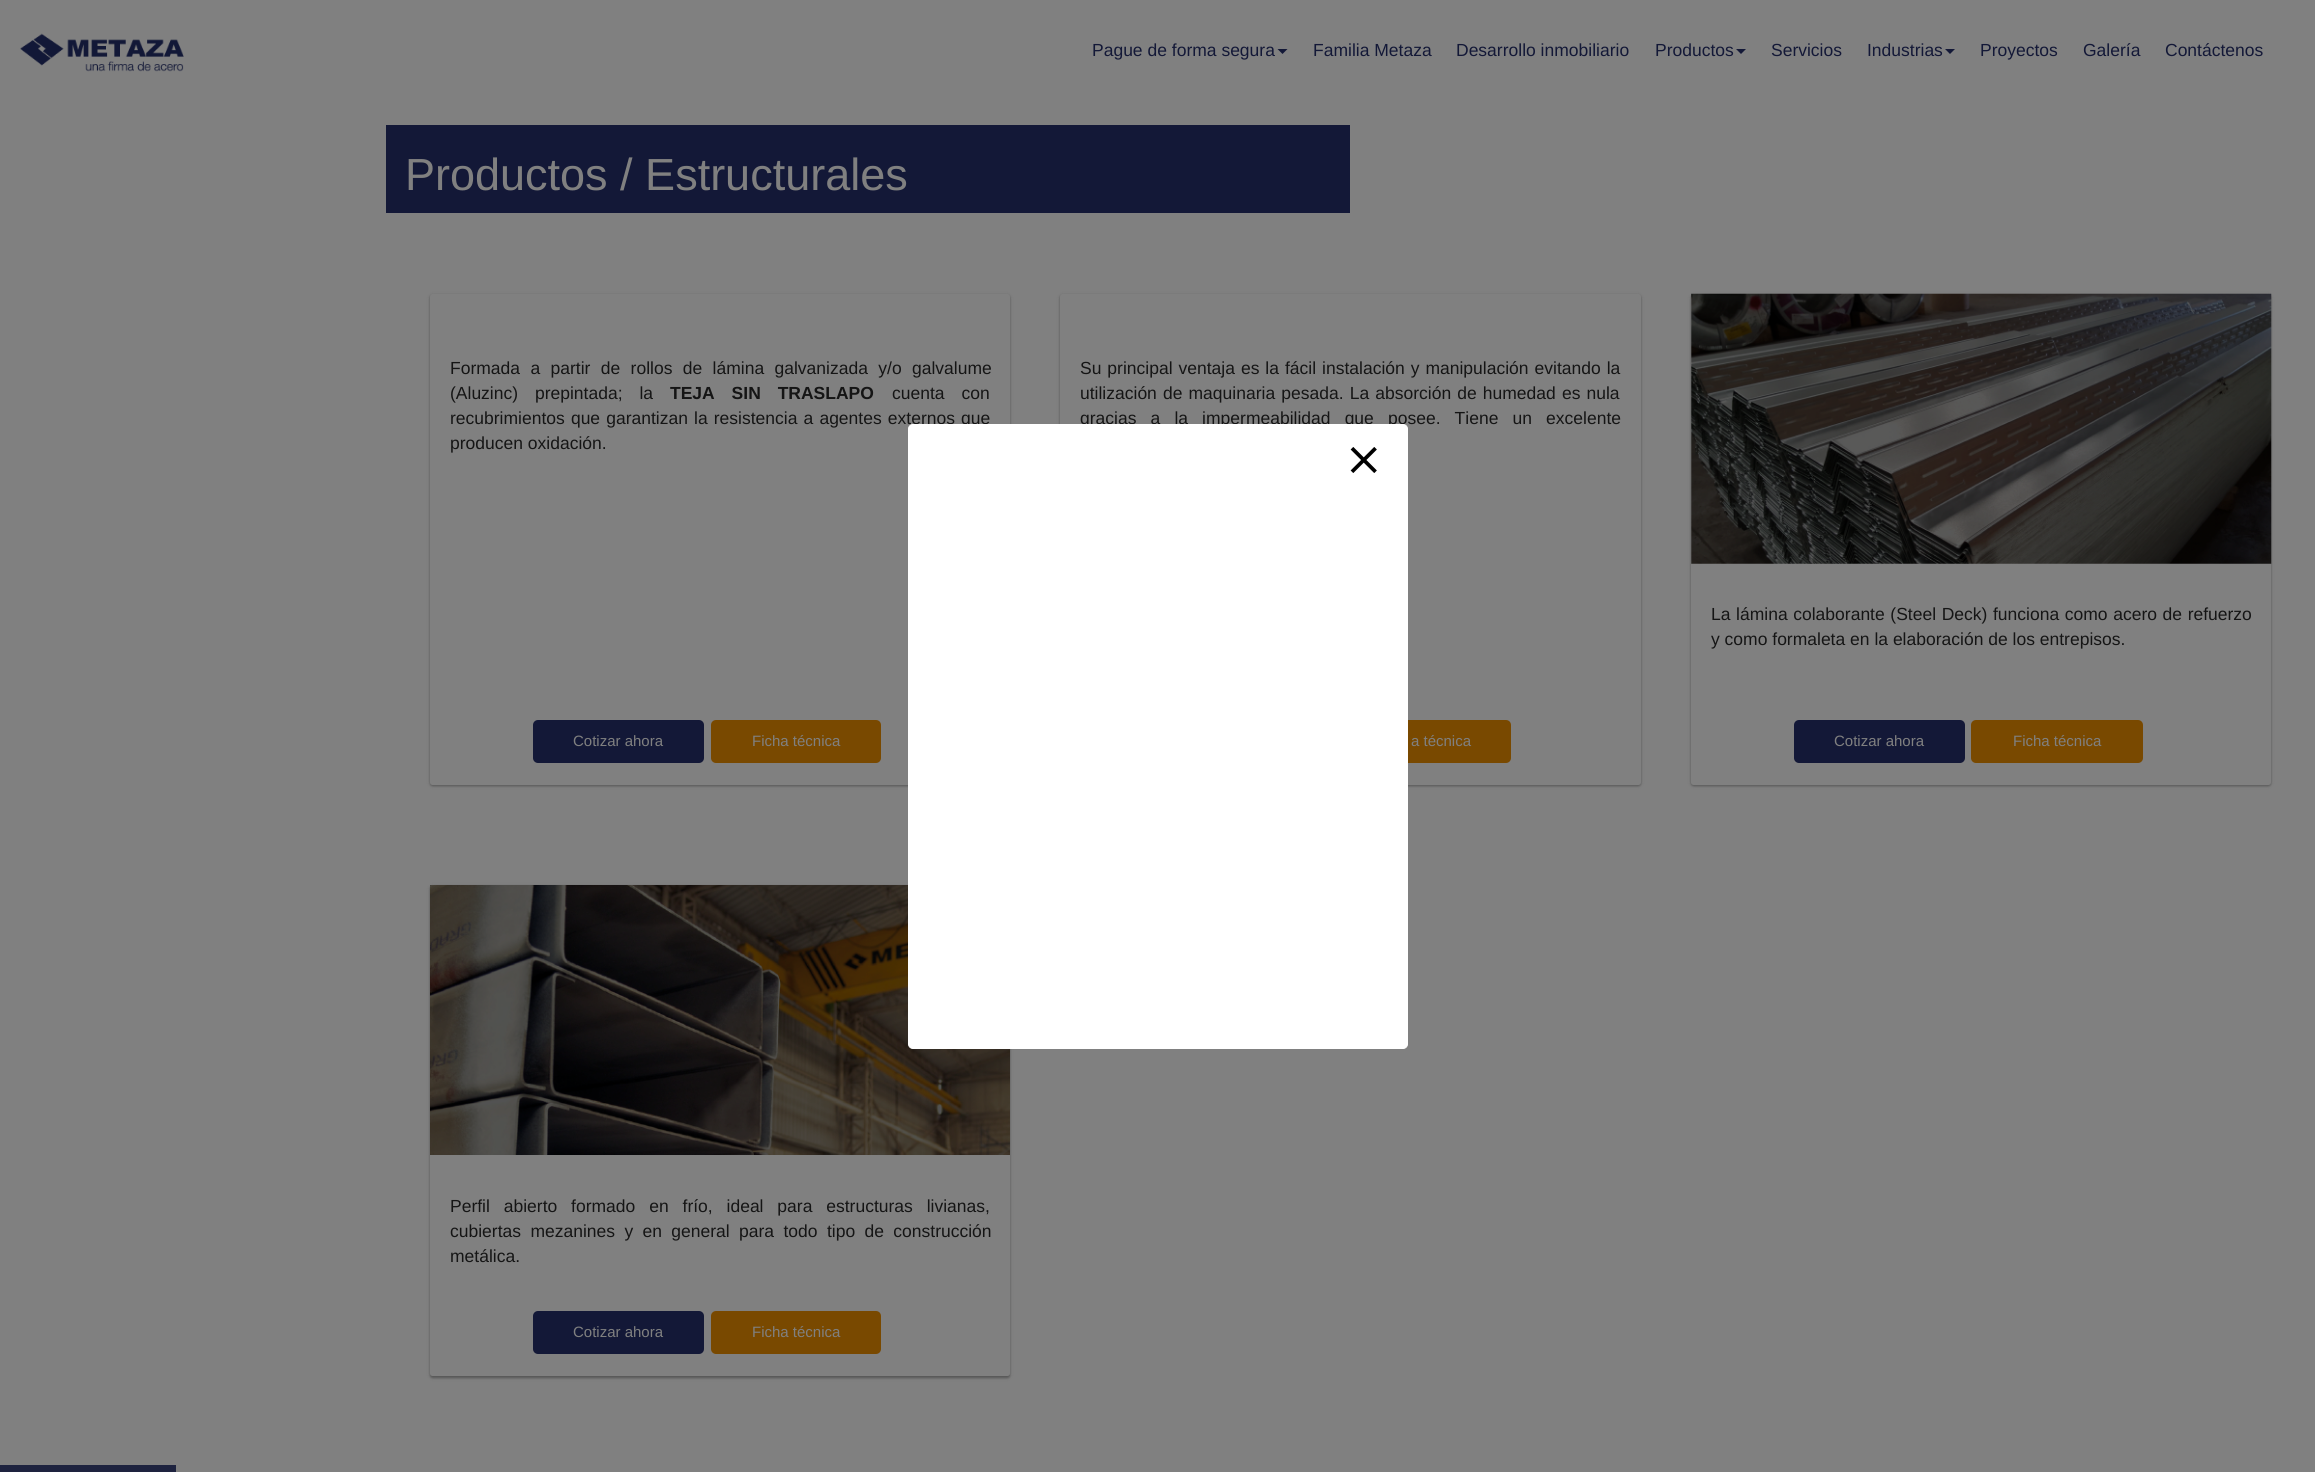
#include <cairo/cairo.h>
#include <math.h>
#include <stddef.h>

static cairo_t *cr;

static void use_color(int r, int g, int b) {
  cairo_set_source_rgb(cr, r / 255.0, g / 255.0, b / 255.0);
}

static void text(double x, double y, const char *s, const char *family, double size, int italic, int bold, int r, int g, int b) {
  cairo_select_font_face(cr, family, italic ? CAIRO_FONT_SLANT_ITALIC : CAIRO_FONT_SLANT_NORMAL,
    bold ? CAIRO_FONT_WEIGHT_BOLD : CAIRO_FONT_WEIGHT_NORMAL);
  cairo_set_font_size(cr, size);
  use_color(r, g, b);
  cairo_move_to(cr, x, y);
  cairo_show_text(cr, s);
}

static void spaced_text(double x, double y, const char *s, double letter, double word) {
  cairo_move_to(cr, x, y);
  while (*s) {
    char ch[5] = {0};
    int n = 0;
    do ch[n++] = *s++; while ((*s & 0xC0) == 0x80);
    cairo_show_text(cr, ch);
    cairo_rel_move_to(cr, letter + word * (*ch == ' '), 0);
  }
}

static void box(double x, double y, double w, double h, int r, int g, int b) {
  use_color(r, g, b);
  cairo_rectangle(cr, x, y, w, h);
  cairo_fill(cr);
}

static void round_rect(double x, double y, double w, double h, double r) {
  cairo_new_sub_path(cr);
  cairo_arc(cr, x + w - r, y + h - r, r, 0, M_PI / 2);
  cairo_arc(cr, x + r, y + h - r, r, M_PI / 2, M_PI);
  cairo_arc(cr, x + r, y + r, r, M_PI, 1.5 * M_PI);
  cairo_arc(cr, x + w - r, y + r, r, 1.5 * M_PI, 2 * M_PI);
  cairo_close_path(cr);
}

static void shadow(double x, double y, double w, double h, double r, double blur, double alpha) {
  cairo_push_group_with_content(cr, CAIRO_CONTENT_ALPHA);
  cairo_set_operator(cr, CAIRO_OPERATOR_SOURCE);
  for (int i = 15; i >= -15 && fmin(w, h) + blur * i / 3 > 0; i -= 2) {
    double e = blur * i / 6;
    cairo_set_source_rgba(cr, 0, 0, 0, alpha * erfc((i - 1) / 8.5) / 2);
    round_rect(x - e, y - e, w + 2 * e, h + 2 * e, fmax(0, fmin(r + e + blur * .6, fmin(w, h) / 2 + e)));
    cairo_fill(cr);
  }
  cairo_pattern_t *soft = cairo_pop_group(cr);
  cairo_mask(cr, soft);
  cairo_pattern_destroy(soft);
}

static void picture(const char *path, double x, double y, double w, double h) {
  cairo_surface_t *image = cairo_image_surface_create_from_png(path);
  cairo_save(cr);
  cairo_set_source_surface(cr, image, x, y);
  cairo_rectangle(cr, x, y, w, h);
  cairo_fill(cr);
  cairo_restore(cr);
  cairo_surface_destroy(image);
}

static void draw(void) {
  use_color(128, 128, 128);
  cairo_paint(cr);
  picture("img_01.png", 20, 33, 164, 39);
  use_color(19, 24, 55);
  cairo_new_path(cr);
  cairo_move_to(cr, 1277.5, 49);
  cairo_line_to(cr, 1287.5, 49);
  cairo_line_to(cr, 1282.5, 54);
  cairo_close_path(cr);
  cairo_fill(cr);
  cairo_new_path(cr);
  cairo_move_to(cr, 1736, 49);
  cairo_line_to(cr, 1746, 49);
  cairo_line_to(cr, 1741, 54);
  cairo_close_path(cr);
  cairo_fill(cr);
  cairo_new_path(cr);
  cairo_move_to(cr, 1945, 49);
  cairo_line_to(cr, 1955, 49);
  cairo_line_to(cr, 1950, 54);
  cairo_close_path(cr);
  cairo_fill(cr);
  box(386, 125, 964, 88, 19, 24, 55);
  use_color(0, 0, 0);
  shadow(430, 295, 580, 491, 2.5, 1, 0.24);
  shadow(430, 295, 580, 491, 2.5, 2, 0.12);
  use_color(128, 128, 128);
  round_rect(430, 294, 580, 491, 2.5);
  cairo_fill(cr);
  use_color(19, 24, 55);
  round_rect(533, 720, 171, 43, 5);
  cairo_fill(cr);
  use_color(121, 73, 0);
  round_rect(711, 720, 170, 43, 5);
  cairo_fill(cr);
  use_color(0, 0, 0);
  shadow(1060, 295, 581, 491, 2.5, 1, 0.24);
  shadow(1060, 295, 581, 491, 2.5, 2, 0.12);
  use_color(128, 128, 128);
  round_rect(1060, 294, 581, 491, 2.5);
  cairo_fill(cr);
  use_color(121, 73, 0);
  round_rect(1341, 720, 170, 43, 5);
  cairo_fill(cr);
  use_color(0, 0, 0);
  shadow(1691, 295, 580, 491, 2.5, 1, 0.24);
  shadow(1691, 295, 580, 491, 2.5, 2, 0.12);
  use_color(128, 128, 128);
  round_rect(1691, 294, 580, 491, 2.5);
  cairo_fill(cr);
  picture("img_02.png", 1691, 293, 581, 271);
  use_color(19, 24, 55);
  round_rect(1794, 720, 171, 43, 5);
  cairo_fill(cr);
  use_color(121, 73, 0);
  round_rect(1971, 720, 172, 43, 5);
  cairo_fill(cr);
  use_color(0, 0, 0);
  shadow(430, 886, 580, 492, 2.5, 1, 0.24);
  shadow(430, 886, 580, 492, 2.5, 2, 0.12);
  use_color(128, 128, 128);
  round_rect(430, 885, 580, 491, 2.5);
  cairo_fill(cr);
  picture("img_03.png", 430, 885, 580, 270);
  use_color(19, 24, 55);
  round_rect(533, 1311, 171, 43, 5);
  cairo_fill(cr);
  use_color(121, 73, 0);
  round_rect(711, 1311, 170, 43, 5);
  cairo_fill(cr);
  box(0, 1465, 176, 7, 30, 35, 63);
  text(1092, 56, "Pague de forma segura", "Liberation Sans", 17.5, 0, 0, 19, 24, 55);
  text(1313, 56, "Familia Metaza", "Liberation Sans", 17.5, 0, 0, 19, 24, 55);
  text(1456, 56, "Desarrollo inmobiliario", "Liberation Sans", 17.5, 0, 0, 19, 24, 55);
  text(1655, 56, "Productos", "Liberation Sans", 17.5, 0, 0, 19, 24, 55);
  text(1771, 56, "Servicios", "Liberation Sans", 17.5, 0, 0, 19, 24, 55);
  text(1867, 56, "Industrias", "Liberation Sans", 17.5, 0, 0, 19, 24, 55);
  text(1980, 56, "Proyectos", "Liberation Sans", 17.5, 0, 0, 19, 24, 55);
  text(2083, 56, "Galería", "Liberation Sans", 17.5, 0, 0, 19, 24, 55);
  text(2165, 56, "Contáctenos", "Liberation Sans", 17.5, 0, 0, 19, 24, 55);
  text(405, 190, "Productos / Estructurales", "Liberation Sans", 45, 0, 0, 128, 128, 128);
  cairo_set_font_size(cr, 17.5);
  use_color(21, 21, 21);
  spaced_text(450, 374, "Formada a partir de rollos de lámina galvanizada y/o galvalume", 0, 5.5);
  spaced_text(450, 399, "(Aluzinc) prepintada; la", 0, 12);
  cairo_select_font_face(cr, "Liberation Sans", CAIRO_FONT_SLANT_NORMAL, CAIRO_FONT_WEIGHT_BOLD);
  spaced_text(670, 399, "TEJA SIN TRASLAPO", 0, 12);
  cairo_select_font_face(cr, "Liberation Sans", CAIRO_FONT_SLANT_NORMAL, CAIRO_FONT_WEIGHT_NORMAL);
  spaced_text(892, 399, "cuenta con", 0, 12);
  spaced_text(450, 424, "recubrimientos que garantizan la resistencia a agentes externos que", 0, 1.25);
  text(450, 449, "producen oxidación.", "Liberation Sans", 17.5, 0, 0, 21, 21, 21);
  text(573, 746, "Cotizar ahora", "Liberation Sans", 15, 0, 0, 128, 128, 128);
  text(752, 746, "Ficha técnica", "Liberation Sans", 15, 0, 0, 128, 128, 128);
  cairo_set_font_size(cr, 17.5);
  use_color(21, 21, 21);
  spaced_text(1080, 374, "Su principal ventaja es la fácil instalación y manipulación evitando la", 0, 1.1);
  spaced_text(1080, 399, "utilización de maquinaria pesada. La absorción de humedad es nula", 0, 1.25);
  spaced_text(1080, 424, "gracias a la impermeabilidad que posee. Tiene un excelente", 0, 9.25);
  text(1411, 746, "a técnica", "Liberation Sans", 15, 0, 0, 128, 128, 128);
  cairo_set_font_size(cr, 17.5);
  use_color(21, 21, 21);
  spaced_text(1711, 620, "La lámina colaborante (Steel Deck) funciona como acero de refuerzo", 0, 0.75);
  text(1711, 645, "y como formaleta en la elaboración de los entrepisos.", "Liberation Sans", 17.5, 0, 0, 21, 21, 21);
  text(1834, 746, "Cotizar ahora", "Liberation Sans", 15, 0, 0, 128, 128, 128);
  text(2013, 746, "Ficha técnica", "Liberation Sans", 15, 0, 0, 128, 128, 128);
  cairo_set_font_size(cr, 17.5);
  use_color(21, 21, 21);
  spaced_text(450, 1212, "Perfil abierto formado en frío, ideal para estructuras livianas,", 0, 9);
  spaced_text(450, 1237, "cubiertas mezanines y en general para todo tipo de construcción", 0, 4.5);
  text(450, 1262, "metálica.", "Liberation Sans", 17.5, 0, 0, 21, 21, 21);
  text(573, 1337, "Cotizar ahora", "Liberation Sans", 15, 0, 0, 128, 128, 128);
  text(752, 1337, "Ficha técnica", "Liberation Sans", 15, 0, 0, 128, 128, 128);
  use_color(255, 255, 255);
  round_rect(908.5, 424.5, 499, 624, 4.5);
  cairo_fill_preserve(cr);
  cairo_set_line_width(cr, 1);
  cairo_stroke(cr);
  picture("img_04.png", 1350, 447, 27, 26);
}

int main(void) {
  cairo_surface_t *surface = cairo_image_surface_create(CAIRO_FORMAT_RGB24, 2315, 1472);
  cr = cairo_create(surface);
  cairo_font_options_t *options = cairo_font_options_create();
  cairo_font_options_set_hint_metrics(options, CAIRO_HINT_METRICS_OFF);
  cairo_font_options_set_hint_style(options, CAIRO_HINT_STYLE_NONE);
  cairo_set_font_options(cr, options);
  cairo_set_miter_limit(cr, 4);
  draw();
  cairo_surface_write_to_png(surface, "out.png");
  cairo_font_options_destroy(options);
  cairo_destroy(cr);
  cairo_surface_destroy(surface);
  return 0;
}
